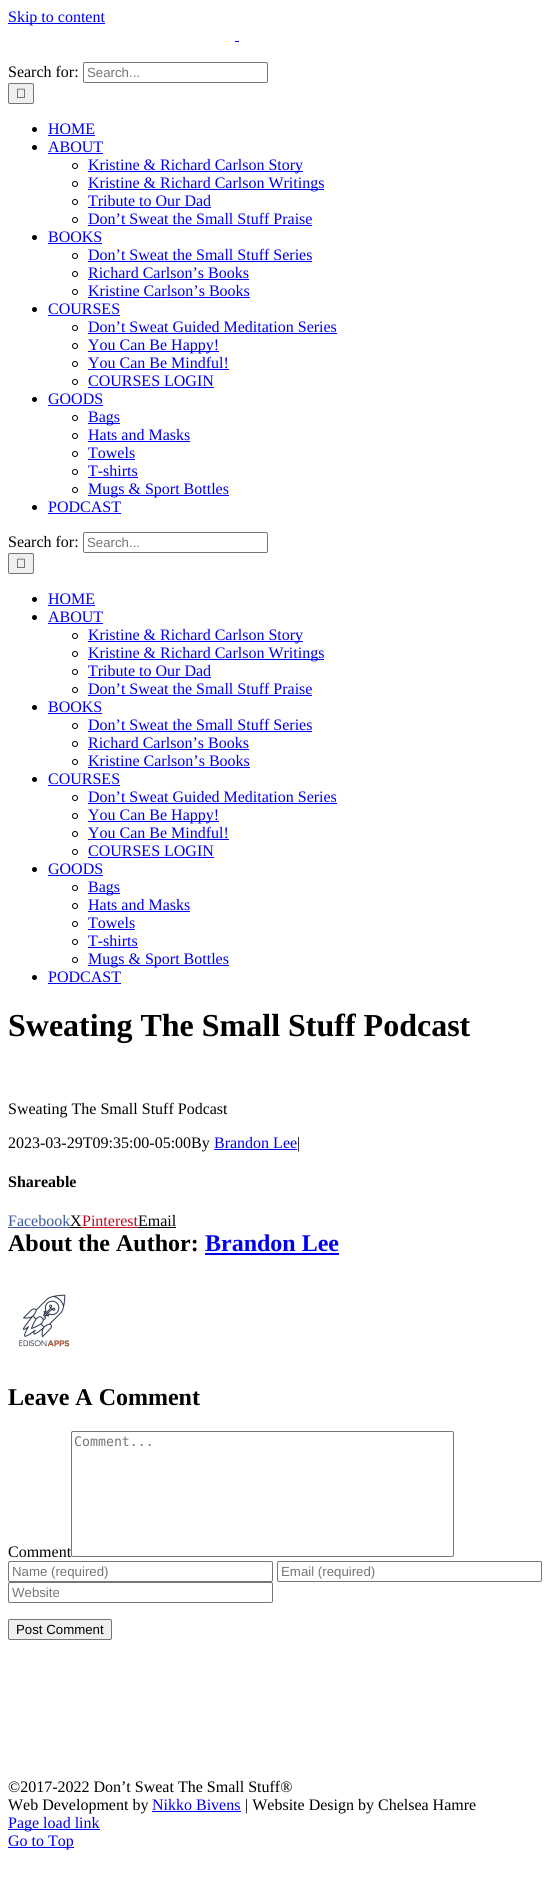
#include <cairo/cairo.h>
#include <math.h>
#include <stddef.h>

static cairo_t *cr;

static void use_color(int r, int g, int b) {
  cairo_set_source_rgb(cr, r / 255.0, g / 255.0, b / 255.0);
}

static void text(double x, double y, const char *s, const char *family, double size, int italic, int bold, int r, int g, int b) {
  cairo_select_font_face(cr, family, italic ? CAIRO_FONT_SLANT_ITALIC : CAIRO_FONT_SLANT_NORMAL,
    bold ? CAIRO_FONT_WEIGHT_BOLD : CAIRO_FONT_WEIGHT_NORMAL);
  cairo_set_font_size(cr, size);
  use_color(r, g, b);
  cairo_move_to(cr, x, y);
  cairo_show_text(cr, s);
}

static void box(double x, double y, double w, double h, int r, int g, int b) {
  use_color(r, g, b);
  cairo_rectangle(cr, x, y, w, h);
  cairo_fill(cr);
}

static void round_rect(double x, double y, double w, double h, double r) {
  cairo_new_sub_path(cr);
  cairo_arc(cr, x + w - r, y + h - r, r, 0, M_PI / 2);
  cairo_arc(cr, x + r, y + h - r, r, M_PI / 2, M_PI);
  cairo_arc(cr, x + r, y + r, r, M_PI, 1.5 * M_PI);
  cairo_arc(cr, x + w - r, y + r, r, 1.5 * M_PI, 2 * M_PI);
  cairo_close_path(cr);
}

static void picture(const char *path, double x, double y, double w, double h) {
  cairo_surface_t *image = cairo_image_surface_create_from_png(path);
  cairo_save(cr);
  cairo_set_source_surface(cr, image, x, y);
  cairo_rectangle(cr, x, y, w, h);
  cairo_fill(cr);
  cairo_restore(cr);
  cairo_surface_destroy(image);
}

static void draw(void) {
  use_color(255, 255, 255);
  cairo_paint(cr);
  box(8, 23, 97, 1, 0, 0, 238);
  box(235, 41, 4, 1, 0, 0, 238);
  round_rect(83.5, 62.5, 184, 20, 1.5);
  use_color(118, 118, 118);
  cairo_set_line_width(cr, 1);
  cairo_stroke(cr);
  use_color(239, 239, 239);
  round_rect(8.5, 83.5, 25, 20, 1.5);
  cairo_fill_preserve(cr);
  use_color(118, 118, 118);
  cairo_stroke(cr);
  picture("img_01.png", 17, 88, 8, 10);
  use_color(0, 0, 0);
  cairo_arc(cr, 34.5, 129.5, 2.5, 0, 2 * M_PI);
  cairo_fill(cr);
  box(48, 135, 47, 1, 0, 0, 238);
  use_color(0, 0, 0);
  cairo_arc(cr, 34.5, 147.5, 2.5, 0, 2 * M_PI);
  cairo_fill(cr);
  box(48, 153, 55, 1, 0, 0, 238);
  cairo_arc(cr, 75, 166, 2.5, 0, 2 * M_PI);
  use_color(0, 0, 0);
  cairo_stroke(cr);
  box(88, 171, 215, 1, 0, 0, 238);
  cairo_arc(cr, 75, 184, 2.5, 0, 2 * M_PI);
  use_color(0, 0, 0);
  cairo_stroke(cr);
  box(88, 189, 236, 1, 0, 0, 238);
  cairo_arc(cr, 75, 202, 2.5, 0, 2 * M_PI);
  use_color(0, 0, 0);
  cairo_stroke(cr);
  box(88, 207, 123, 1, 0, 0, 238);
  cairo_arc(cr, 75, 220, 2.5, 0, 2 * M_PI);
  use_color(0, 0, 0);
  cairo_stroke(cr);
  box(88, 225, 224, 1, 0, 0, 238);
  use_color(0, 0, 0);
  cairo_arc(cr, 34.5, 237.5, 2.5, 0, 2 * M_PI);
  cairo_fill(cr);
  box(48, 243, 54, 1, 0, 0, 238);
  cairo_arc(cr, 75, 256, 2.5, 0, 2 * M_PI);
  use_color(0, 0, 0);
  cairo_stroke(cr);
  box(88, 261, 224, 1, 0, 0, 238);
  cairo_arc(cr, 75, 274, 2.5, 0, 2 * M_PI);
  use_color(0, 0, 0);
  cairo_stroke(cr);
  box(88, 279, 161, 1, 0, 0, 238);
  cairo_arc(cr, 75, 292, 2.5, 0, 2 * M_PI);
  use_color(0, 0, 0);
  cairo_stroke(cr);
  box(88, 297, 162, 1, 0, 0, 238);
  use_color(0, 0, 0);
  cairo_arc(cr, 34.5, 309.5, 2.5, 0, 2 * M_PI);
  cairo_fill(cr);
  box(48, 315, 72, 1, 0, 0, 238);
  cairo_arc(cr, 75, 328, 2.5, 0, 2 * M_PI);
  use_color(0, 0, 0);
  cairo_stroke(cr);
  box(88, 333, 249, 1, 0, 0, 238);
  cairo_arc(cr, 75, 346, 2.5, 0, 2 * M_PI);
  use_color(0, 0, 0);
  cairo_stroke(cr);
  box(88, 351, 131, 1, 0, 0, 238);
  cairo_arc(cr, 75, 364, 2.5, 0, 2 * M_PI);
  use_color(0, 0, 0);
  cairo_stroke(cr);
  box(88, 369, 141, 1, 0, 0, 238);
  cairo_arc(cr, 75, 382, 2.5, 0, 2 * M_PI);
  use_color(0, 0, 0);
  cairo_stroke(cr);
  box(88, 387, 126, 1, 0, 0, 238);
  use_color(0, 0, 0);
  cairo_arc(cr, 34.5, 399.5, 2.5, 0, 2 * M_PI);
  cairo_fill(cr);
  box(48, 405, 55, 1, 0, 0, 238);
  cairo_arc(cr, 75, 418, 2.5, 0, 2 * M_PI);
  use_color(0, 0, 0);
  cairo_stroke(cr);
  box(88, 423, 32, 1, 0, 0, 238);
  cairo_arc(cr, 75, 436, 2.5, 0, 2 * M_PI);
  use_color(0, 0, 0);
  cairo_stroke(cr);
  box(88, 441, 102, 1, 0, 0, 238);
  cairo_arc(cr, 75, 454, 2.5, 0, 2 * M_PI);
  use_color(0, 0, 0);
  cairo_stroke(cr);
  box(88, 459, 47, 1, 0, 0, 238);
  cairo_arc(cr, 75, 472, 2.5, 0, 2 * M_PI);
  use_color(0, 0, 0);
  cairo_stroke(cr);
  box(88, 477, 50, 1, 0, 0, 238);
  cairo_arc(cr, 75, 490, 2.5, 0, 2 * M_PI);
  use_color(0, 0, 0);
  cairo_stroke(cr);
  box(88, 495, 141, 1, 0, 0, 238);
  use_color(0, 0, 0);
  cairo_arc(cr, 34.5, 507.5, 2.5, 0, 2 * M_PI);
  cairo_fill(cr);
  box(48, 513, 73, 1, 0, 0, 238);
  round_rect(83.5, 532.5, 184, 20, 1.5);
  use_color(118, 118, 118);
  cairo_stroke(cr);
  use_color(239, 239, 239);
  round_rect(8.5, 553.5, 25, 20, 1.5);
  cairo_fill_preserve(cr);
  use_color(118, 118, 118);
  cairo_stroke(cr);
  picture("img_01.png", 17, 558, 8, 10);
  use_color(0, 0, 0);
  cairo_arc(cr, 34.5, 599.5, 2.5, 0, 2 * M_PI);
  cairo_fill(cr);
  box(48, 605, 47, 1, 0, 0, 238);
  use_color(0, 0, 0);
  cairo_arc(cr, 34.5, 617.5, 2.5, 0, 2 * M_PI);
  cairo_fill(cr);
  box(48, 623, 55, 1, 0, 0, 238);
  cairo_arc(cr, 75, 636, 2.5, 0, 2 * M_PI);
  use_color(0, 0, 0);
  cairo_stroke(cr);
  box(88, 641, 215, 1, 0, 0, 238);
  cairo_arc(cr, 75, 654, 2.5, 0, 2 * M_PI);
  use_color(0, 0, 0);
  cairo_stroke(cr);
  box(88, 659, 236, 1, 0, 0, 238);
  cairo_arc(cr, 75, 672, 2.5, 0, 2 * M_PI);
  use_color(0, 0, 0);
  cairo_stroke(cr);
  box(88, 677, 123, 1, 0, 0, 238);
  cairo_arc(cr, 75, 690, 2.5, 0, 2 * M_PI);
  use_color(0, 0, 0);
  cairo_stroke(cr);
  box(88, 695, 224, 1, 0, 0, 238);
  use_color(0, 0, 0);
  cairo_arc(cr, 34.5, 707.5, 2.5, 0, 2 * M_PI);
  cairo_fill(cr);
  box(48, 713, 54, 1, 0, 0, 238);
  cairo_arc(cr, 75, 726, 2.5, 0, 2 * M_PI);
  use_color(0, 0, 0);
  cairo_stroke(cr);
  box(88, 731, 224, 1, 0, 0, 238);
  cairo_arc(cr, 75, 744, 2.5, 0, 2 * M_PI);
  use_color(0, 0, 0);
  cairo_stroke(cr);
  box(88, 749, 161, 1, 0, 0, 238);
  cairo_arc(cr, 75, 762, 2.5, 0, 2 * M_PI);
  use_color(0, 0, 0);
  cairo_stroke(cr);
  box(88, 767, 162, 1, 0, 0, 238);
  use_color(0, 0, 0);
  cairo_arc(cr, 34.5, 779.5, 2.5, 0, 2 * M_PI);
  cairo_fill(cr);
  box(48, 785, 72, 1, 0, 0, 238);
  cairo_arc(cr, 75, 798, 2.5, 0, 2 * M_PI);
  use_color(0, 0, 0);
  cairo_stroke(cr);
  box(88, 803, 249, 1, 0, 0, 238);
  cairo_arc(cr, 75, 816, 2.5, 0, 2 * M_PI);
  use_color(0, 0, 0);
  cairo_stroke(cr);
  box(88, 821, 131, 1, 0, 0, 238);
  cairo_arc(cr, 75, 834, 2.5, 0, 2 * M_PI);
  use_color(0, 0, 0);
  cairo_stroke(cr);
  box(88, 839, 141, 1, 0, 0, 238);
  cairo_arc(cr, 75, 852, 2.5, 0, 2 * M_PI);
  use_color(0, 0, 0);
  cairo_stroke(cr);
  box(88, 857, 126, 1, 0, 0, 238);
  use_color(0, 0, 0);
  cairo_arc(cr, 34.5, 869.5, 2.5, 0, 2 * M_PI);
  cairo_fill(cr);
  box(48, 875, 55, 1, 0, 0, 238);
  cairo_arc(cr, 75, 888, 2.5, 0, 2 * M_PI);
  use_color(0, 0, 0);
  cairo_stroke(cr);
  box(88, 893, 32, 1, 0, 0, 238);
  cairo_arc(cr, 75, 906, 2.5, 0, 2 * M_PI);
  use_color(0, 0, 0);
  cairo_stroke(cr);
  box(88, 911, 102, 1, 0, 0, 238);
  cairo_arc(cr, 75, 924, 2.5, 0, 2 * M_PI);
  use_color(0, 0, 0);
  cairo_stroke(cr);
  box(88, 929, 47, 1, 0, 0, 238);
  cairo_arc(cr, 75, 942, 2.5, 0, 2 * M_PI);
  use_color(0, 0, 0);
  cairo_stroke(cr);
  box(88, 947, 50, 1, 0, 0, 238);
  cairo_arc(cr, 75, 960, 2.5, 0, 2 * M_PI);
  use_color(0, 0, 0);
  cairo_stroke(cr);
  box(88, 965, 141, 1, 0, 0, 238);
  use_color(0, 0, 0);
  cairo_arc(cr, 34.5, 977.5, 2.5, 0, 2 * M_PI);
  cairo_fill(cr);
  box(48, 983, 73, 1, 0, 0, 238);
  box(214, 1149, 83, 1, 0, 0, 238);
  box(8, 1227, 62, 1, 59, 89, 152);
  box(70, 1227, 12, 1, 0, 0, 0);
  box(82, 1227, 56, 1, 189, 8, 28);
  box(138, 1227, 38, 1, 0, 0, 0);
  box(205, 1253, 134, 2, 0, 0, 238);
  picture("img_02.png", 19, 1294, 51, 53);
  round_rect(8.5, 1561.5, 264, 20, 1.5);
  use_color(118, 118, 118);
  cairo_stroke(cr);
  round_rect(277.5, 1561.5, 264, 20, 1.5);
  cairo_stroke(cr);
  round_rect(8.5, 1582.5, 264, 20, 1.5);
  cairo_stroke(cr);
  use_color(239, 239, 239);
  round_rect(8.5, 1619.5, 103, 20, 1.5);
  cairo_fill_preserve(cr);
  use_color(118, 118, 118);
  cairo_stroke(cr);
  box(152, 1811, 89, 1, 0, 0, 238);
  box(8, 1829, 92, 1, 0, 0, 238);
  box(8, 1847, 66, 1, 0, 0, 238);
  text(8, 22, "Skip to content", "Liberation Serif", 16, 0, 0, 0, 0, 238);
  text(8, 77, "Search for:", "Liberation Serif", 16, 0, 0, 0, 0, 0);
  text(87, 77, "Search...", "Liberation Sans", 13.25, 0, 0, 117, 117, 117);
  text(48, 134, "HOME", "Liberation Serif", 16, 0, 0, 0, 0, 238);
  text(48, 152, "ABOUT", "Liberation Serif", 16, 0, 0, 0, 0, 238);
  text(88, 170, "Kristine & Richard Carlson Story", "Liberation Serif", 16, 0, 0, 0, 0, 238);
  text(88, 188, "Kristine & Richard Carlson Writings", "Liberation Serif", 16, 0, 0, 0, 0, 238);
  text(88, 206, "Tribute to Our Dad", "Liberation Serif", 16, 0, 0, 0, 0, 238);
  text(88, 224, "Don’t Sweat the Small Stuff Praise", "Liberation Serif", 16, 0, 0, 0, 0, 238);
  text(48, 242, "BOOKS", "Liberation Serif", 16, 0, 0, 0, 0, 238);
  text(88, 260, "Don’t Sweat the Small Stuff Series", "Liberation Serif", 16, 0, 0, 0, 0, 238);
  text(88, 278, "Richard Carlson’s Books", "Liberation Serif", 16, 0, 0, 0, 0, 238);
  text(88, 296, "Kristine Carlson’s Books", "Liberation Serif", 16, 0, 0, 0, 0, 238);
  text(48, 314, "COURSES", "Liberation Serif", 16, 0, 0, 0, 0, 238);
  text(88, 332, "Don’t Sweat Guided Meditation Series", "Liberation Serif", 16, 0, 0, 0, 0, 238);
  text(88, 350, "You Can Be Happy!", "Liberation Serif", 16, 0, 0, 0, 0, 238);
  text(88, 368, "You Can Be Mindful!", "Liberation Serif", 16, 0, 0, 0, 0, 238);
  text(88, 386, "COURSES LOGIN", "Liberation Serif", 16, 0, 0, 0, 0, 238);
  text(48, 404, "GOODS", "Liberation Serif", 16, 0, 0, 0, 0, 238);
  text(88, 422, "Bags", "Liberation Serif", 16, 0, 0, 0, 0, 238);
  text(88, 440, "Hats and Masks", "Liberation Serif", 16, 0, 0, 0, 0, 238);
  text(88, 458, "Towels", "Liberation Serif", 16, 0, 0, 0, 0, 238);
  text(88, 476, "T-shirts", "Liberation Serif", 16, 0, 0, 0, 0, 238);
  text(88, 494, "Mugs & Sport Bottles", "Liberation Serif", 16, 0, 0, 0, 0, 238);
  text(48, 512, "PODCAST", "Liberation Serif", 16, 0, 0, 0, 0, 238);
  text(8, 547, "Search for:", "Liberation Serif", 16, 0, 0, 0, 0, 0);
  text(87, 547, "Search...", "Liberation Sans", 13.25, 0, 0, 117, 117, 117);
  text(48, 604, "HOME", "Liberation Serif", 16, 0, 0, 0, 0, 238);
  text(48, 622, "ABOUT", "Liberation Serif", 16, 0, 0, 0, 0, 238);
  text(88, 640, "Kristine & Richard Carlson Story", "Liberation Serif", 16, 0, 0, 0, 0, 238);
  text(88, 658, "Kristine & Richard Carlson Writings", "Liberation Serif", 16, 0, 0, 0, 0, 238);
  text(88, 676, "Tribute to Our Dad", "Liberation Serif", 16, 0, 0, 0, 0, 238);
  text(88, 694, "Don’t Sweat the Small Stuff Praise", "Liberation Serif", 16, 0, 0, 0, 0, 238);
  text(48, 712, "BOOKS", "Liberation Serif", 16, 0, 0, 0, 0, 238);
  text(88, 730, "Don’t Sweat the Small Stuff Series", "Liberation Serif", 16, 0, 0, 0, 0, 238);
  text(88, 748, "Richard Carlson’s Books", "Liberation Serif", 16, 0, 0, 0, 0, 238);
  text(88, 766, "Kristine Carlson’s Books", "Liberation Serif", 16, 0, 0, 0, 0, 238);
  text(48, 784, "COURSES", "Liberation Serif", 16, 0, 0, 0, 0, 238);
  text(88, 802, "Don’t Sweat Guided Meditation Series", "Liberation Serif", 16, 0, 0, 0, 0, 238);
  text(88, 820, "You Can Be Happy!", "Liberation Serif", 16, 0, 0, 0, 0, 238);
  text(88, 838, "You Can Be Mindful!", "Liberation Serif", 16, 0, 0, 0, 0, 238);
  text(88, 856, "COURSES LOGIN", "Liberation Serif", 16, 0, 0, 0, 0, 238);
  text(48, 874, "GOODS", "Liberation Serif", 16, 0, 0, 0, 0, 238);
  text(88, 892, "Bags", "Liberation Serif", 16, 0, 0, 0, 0, 238);
  text(88, 910, "Hats and Masks", "Liberation Serif", 16, 0, 0, 0, 0, 238);
  text(88, 928, "Towels", "Liberation Serif", 16, 0, 0, 0, 0, 238);
  text(88, 946, "T-shirts", "Liberation Serif", 16, 0, 0, 0, 0, 238);
  text(88, 964, "Mugs & Sport Bottles", "Liberation Serif", 16, 0, 0, 0, 0, 238);
  text(48, 982, "PODCAST", "Liberation Serif", 16, 0, 0, 0, 0, 238);
  text(8, 1036, "Sweating The Small Stuff Podcast", "Liberation Serif", 32, 0, 1, 0, 0, 0);
  text(8, 1114, "Sweating The Small Stuff Podcast", "Liberation Serif", 16, 0, 0, 0, 0, 0);
  text(8, 1148, "2023-03-29T09:35:00-05:00By", "Liberation Serif", 16, 0, 0, 0, 0, 0);
  text(214, 1148, "Brandon Lee", "Liberation Serif", 16, 0, 0, 0, 0, 238);
  text(297, 1148, "|", "Liberation Serif", 16, 0, 0, 0, 0, 0);
  text(8, 1187, "Shareable", "Liberation Serif", 16, 0, 1, 0, 0, 0);
  text(8, 1226, "Facebook", "Liberation Serif", 16, 0, 0, 59, 89, 152);
  text(70, 1226, "X", "Liberation Serif", 16, 0, 0, 0, 0, 0);
  text(82, 1226, "Pinterest", "Liberation Serif", 16, 0, 0, 189, 8, 28);
  text(138, 1226, "Email", "Liberation Serif", 16, 0, 0, 0, 0, 0);
  text(8, 1251, "About the Author:", "Liberation Serif", 24, 0, 1, 0, 0, 0);
  text(205, 1251, "Brandon Lee", "Liberation Serif", 24, 0, 1, 0, 0, 238);
  text(8, 1405, "Leave A Comment", "Liberation Serif", 24, 0, 1, 0, 0, 0);
  text(8, 1557, "Comment", "Liberation Serif", 16, 0, 0, 0, 0, 0);
  round_rect(71.5, 1431.5, 382, 125, 1.5);
  use_color(118, 118, 118);
  cairo_stroke(cr);
  text(74, 1446, "Comment...", "DejaVu Sans Mono", 13.25, 0, 0, 117, 117, 117);
  text(12, 1576, "Name (required)", "Liberation Sans", 13.25, 0, 0, 117, 117, 117);
  text(281, 1576, "Email (required)", "Liberation Sans", 13.25, 0, 0, 117, 117, 117);
  text(12, 1597, "Website", "Liberation Sans", 13.25, 0, 0, 117, 117, 117);
  text(16, 1634, "Post Comment", "Liberation Sans", 13.25, 0, 0, 0, 0, 0);
  text(8, 1792, "©2017-2022 Don’t Sweat The Small Stuff®", "Liberation Serif", 16, 0, 0, 0, 0, 0);
  text(8, 1810, "Web Development by", "Liberation Serif", 16, 0, 0, 0, 0, 0);
  text(152, 1810, "Nikko Bivens", "Liberation Serif", 16, 0, 0, 0, 0, 238);
  text(245, 1810, "| Website Design by Chelsea Hamre", "Liberation Serif", 16, 0, 0, 0, 0, 0);
  text(8, 1828, "Page load link", "Liberation Serif", 16, 0, 0, 0, 0, 238);
  text(8, 1846, "Go to Top", "Liberation Serif", 16, 0, 0, 0, 0, 238);
}

int main(void) {
  cairo_surface_t *surface = cairo_image_surface_create(CAIRO_FORMAT_RGB24, 555, 1902);
  cr = cairo_create(surface);
  cairo_font_options_t *options = cairo_font_options_create();
  cairo_font_options_set_hint_metrics(options, CAIRO_HINT_METRICS_OFF);
  cairo_font_options_set_hint_style(options, CAIRO_HINT_STYLE_NONE);
  cairo_set_font_options(cr, options);
  cairo_set_miter_limit(cr, 4);
  draw();
  cairo_surface_write_to_png(surface, "out.png");
  cairo_font_options_destroy(options);
  cairo_destroy(cr);
  cairo_surface_destroy(surface);
  return 0;
}
